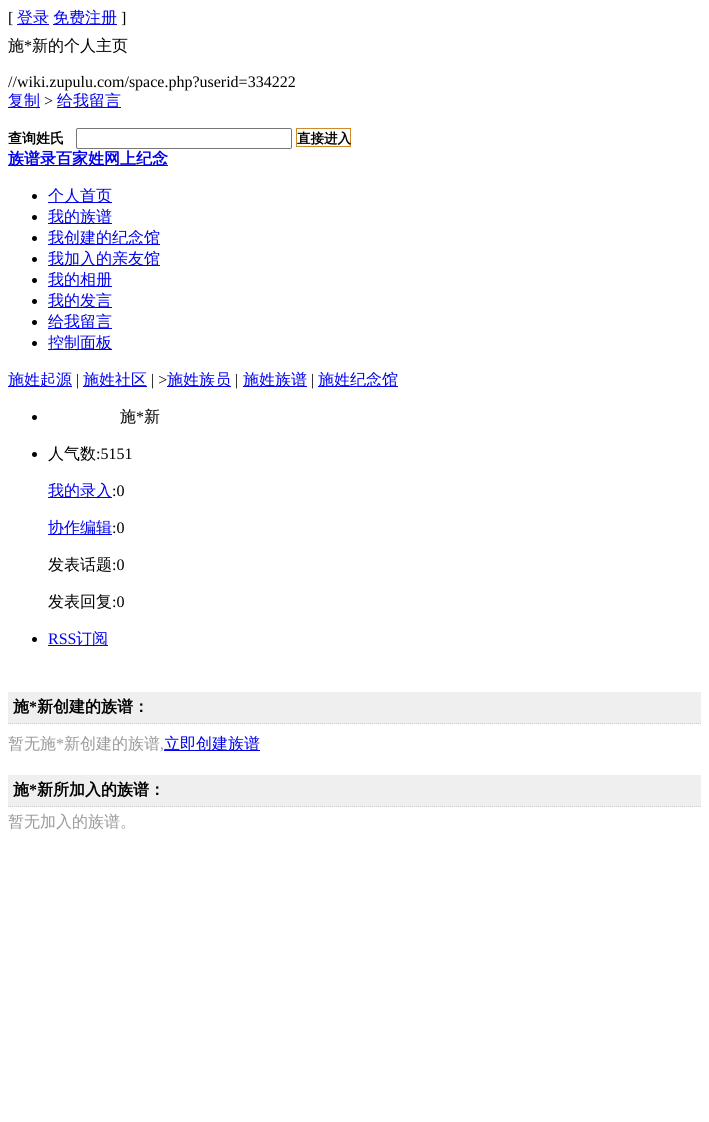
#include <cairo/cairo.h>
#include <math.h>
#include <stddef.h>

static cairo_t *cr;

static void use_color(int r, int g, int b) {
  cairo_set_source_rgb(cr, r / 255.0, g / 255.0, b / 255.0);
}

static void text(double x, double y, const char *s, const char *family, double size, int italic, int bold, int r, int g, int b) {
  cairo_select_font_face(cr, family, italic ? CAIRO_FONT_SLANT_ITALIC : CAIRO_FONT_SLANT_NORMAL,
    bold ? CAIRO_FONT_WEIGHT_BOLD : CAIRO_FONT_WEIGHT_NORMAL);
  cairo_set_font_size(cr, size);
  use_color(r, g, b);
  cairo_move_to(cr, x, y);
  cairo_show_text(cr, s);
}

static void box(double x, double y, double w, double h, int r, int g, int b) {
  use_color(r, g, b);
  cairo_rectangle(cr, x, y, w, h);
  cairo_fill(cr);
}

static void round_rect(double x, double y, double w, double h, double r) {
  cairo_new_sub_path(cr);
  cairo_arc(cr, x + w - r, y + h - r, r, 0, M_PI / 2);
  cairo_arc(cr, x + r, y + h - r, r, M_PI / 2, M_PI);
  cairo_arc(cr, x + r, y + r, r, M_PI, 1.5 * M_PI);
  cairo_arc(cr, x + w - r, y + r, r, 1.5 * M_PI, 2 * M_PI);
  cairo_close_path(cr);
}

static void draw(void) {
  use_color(255, 255, 255);
  cairo_paint(cr);
  box(17, 24, 32, 1, 0, 0, 238);
  box(53, 24, 64, 1, 0, 0, 238);
  box(8, 107, 32, 1, 0, 0, 238);
  box(57, 107, 64, 1, 0, 0, 238);
  round_rect(76.5, 128.5, 215, 20, 1.5);
  use_color(118, 118, 118);
  cairo_set_line_width(cr, 1);
  cairo_stroke(cr);
  cairo_rectangle(cr, 296.5, 128.5, 54, 18);
  use_color(206, 139, 43);
  cairo_stroke(cr);
  box(8, 165, 160, 1, 0, 0, 238);
  use_color(0, 0, 0);
  cairo_arc(cr, 34.5, 196.5, 2.5, 0, 2 * M_PI);
  cairo_fill(cr);
  box(48, 202, 64, 1, 0, 0, 238);
  use_color(0, 0, 0);
  cairo_arc(cr, 34.5, 217.5, 2.5, 0, 2 * M_PI);
  cairo_fill(cr);
  box(48, 223, 64, 1, 0, 0, 238);
  use_color(0, 0, 0);
  cairo_arc(cr, 34.5, 238.5, 2.5, 0, 2 * M_PI);
  cairo_fill(cr);
  box(48, 244, 112, 1, 0, 0, 238);
  use_color(0, 0, 0);
  cairo_arc(cr, 34.5, 259.5, 2.5, 0, 2 * M_PI);
  cairo_fill(cr);
  box(48, 265, 112, 1, 0, 0, 238);
  use_color(0, 0, 0);
  cairo_arc(cr, 34.5, 280.5, 2.5, 0, 2 * M_PI);
  cairo_fill(cr);
  box(48, 286, 64, 1, 0, 0, 238);
  use_color(0, 0, 0);
  cairo_arc(cr, 34.5, 301.5, 2.5, 0, 2 * M_PI);
  cairo_fill(cr);
  box(48, 307, 64, 1, 0, 0, 238);
  use_color(0, 0, 0);
  cairo_arc(cr, 34.5, 322.5, 2.5, 0, 2 * M_PI);
  cairo_fill(cr);
  box(48, 328, 64, 1, 0, 0, 238);
  use_color(0, 0, 0);
  cairo_arc(cr, 34.5, 343.5, 2.5, 0, 2 * M_PI);
  cairo_fill(cr);
  box(48, 349, 64, 1, 0, 0, 238);
  box(8, 386, 64, 1, 0, 0, 238);
  box(83, 386, 64, 1, 0, 0, 238);
  box(167, 386, 64, 1, 0, 0, 238);
  box(243, 386, 64, 1, 0, 0, 238);
  box(318, 386, 80, 1, 0, 0, 238);
  use_color(0, 0, 0);
  cairo_arc(cr, 34.5, 417.5, 2.5, 0, 2 * M_PI);
  cairo_fill(cr);
  cairo_arc(cr, 34.5, 454.5, 2.5, 0, 2 * M_PI);
  cairo_fill(cr);
  box(48, 497, 64, 1, 0, 0, 238);
  box(48, 534, 64, 1, 0, 0, 238);
  use_color(0, 0, 0);
  cairo_arc(cr, 34.5, 639.5, 2.5, 0, 2 * M_PI);
  cairo_fill(cr);
  box(48, 645, 60, 1, 0, 0, 238);
  box(8, 692, 693, 32, 239, 239, 239);
  cairo_new_path(cr);
  cairo_move_to(cr, 8, 723.5);
  cairo_line_to(cr, 701, 723.5);
  use_color(204, 204, 204);
  cairo_set_dash(cr, (double[]){1, 1}, 2, 0);
  cairo_stroke(cr);
  box(164, 750, 96, 1, 0, 0, 238);
  box(8, 775, 693, 32, 239, 239, 239);
  cairo_new_path(cr);
  cairo_move_to(cr, 8, 806.5);
  cairo_line_to(cr, 701, 806.5);
  use_color(204, 204, 204);
  cairo_stroke(cr);
  text(8, 23, "[", "Liberation Serif", 16, 0, 0, 0, 0, 0);
  text(17, 23, "登录", "WenQuanYi Zen Hei Medium", 16, 0, 0, 0, 0, 238);
  text(53, 23, "免费注册", "WenQuanYi Zen Hei Medium", 16, 0, 0, 0, 0, 238);
  text(121, 23, "]", "Liberation Serif", 16, 0, 0, 0, 0, 0);
  text(8, 51, "施", "WenQuanYi Zen Hei Medium", 16, 0, 0, 0, 0, 0);
  text(24, 51, "*", "Liberation Serif", 16, 0, 0, 0, 0, 0);
  text(32, 51, "新的个人主页", "WenQuanYi Zen Hei Medium", 16, 0, 0, 0, 0, 0);
  text(8, 87, "//wiki.zupulu.com/space.php?userid=334222", "Liberation Serif", 16, 0, 0, 0, 0, 0);
  text(8, 106, "复制", "WenQuanYi Zen Hei Medium", 16, 0, 0, 0, 0, 238);
  text(44, 106, ">", "Liberation Serif", 16, 0, 0, 0, 0, 0);
  text(57, 106, "给我留言", "WenQuanYi Zen Hei Medium", 16, 0, 0, 0, 0, 238);
  text(8, 143, "查询姓氏", "WenQuanYi Zen Hei", 14, 0, 1, 0, 0, 0);
  text(297, 143, "直接进入", "WenQuanYi Zen Hei", 13.5, 0, 1, 0, 0, 0);
  text(8, 164, "族谱录百家姓网上纪念", "WenQuanYi Zen Hei", 16, 0, 1, 0, 0, 238);
  text(48, 201, "个人首页", "WenQuanYi Zen Hei Medium", 16, 0, 0, 0, 0, 238);
  text(48, 222, "我的族谱", "WenQuanYi Zen Hei Medium", 16, 0, 0, 0, 0, 238);
  text(48, 243, "我创建的纪念馆", "WenQuanYi Zen Hei Medium", 16, 0, 0, 0, 0, 238);
  text(48, 264, "我加入的亲友馆", "WenQuanYi Zen Hei Medium", 16, 0, 0, 0, 0, 238);
  text(48, 285, "我的相册", "WenQuanYi Zen Hei Medium", 16, 0, 0, 0, 0, 238);
  text(48, 306, "我的发言", "WenQuanYi Zen Hei Medium", 16, 0, 0, 0, 0, 238);
  text(48, 327, "给我留言", "WenQuanYi Zen Hei Medium", 16, 0, 0, 0, 0, 238);
  text(48, 348, "控制面板", "WenQuanYi Zen Hei Medium", 16, 0, 0, 0, 0, 238);
  text(8, 385, "施姓起源", "WenQuanYi Zen Hei Medium", 16, 0, 0, 0, 0, 238);
  text(76, 385, "|", "Liberation Serif", 16, 0, 0, 0, 0, 0);
  text(83, 385, "施姓社区", "WenQuanYi Zen Hei Medium", 16, 0, 0, 0, 0, 238);
  text(151, 385, "| >", "Liberation Serif", 16, 0, 0, 0, 0, 0);
  text(167, 385, "施姓族员", "WenQuanYi Zen Hei Medium", 16, 0, 0, 0, 0, 238);
  text(235, 385, "|", "Liberation Serif", 16, 0, 0, 0, 0, 0);
  text(243, 385, "施姓族谱", "WenQuanYi Zen Hei Medium", 16, 0, 0, 0, 0, 238);
  text(311, 385, "|", "Liberation Serif", 16, 0, 0, 0, 0, 0);
  text(318, 385, "施姓纪念馆", "WenQuanYi Zen Hei Medium", 16, 0, 0, 0, 0, 238);
  text(120, 422, "施", "WenQuanYi Zen Hei Medium", 16, 0, 0, 0, 0, 0);
  text(136, 422, "*", "Liberation Serif", 16, 0, 0, 0, 0, 0);
  text(144, 422, "新", "WenQuanYi Zen Hei Medium", 16, 0, 0, 0, 0, 0);
  text(48, 459, "人气数", "WenQuanYi Zen Hei Medium", 16, 0, 0, 0, 0, 0);
  text(96, 459, ":5151", "Liberation Serif", 16, 0, 0, 0, 0, 0);
  text(48, 496, "我的录入", "WenQuanYi Zen Hei Medium", 16, 0, 0, 0, 0, 238);
  text(112, 496, ":0", "Liberation Serif", 16, 0, 0, 0, 0, 0);
  text(48, 533, "协作编辑", "WenQuanYi Zen Hei Medium", 16, 0, 0, 0, 0, 238);
  text(112, 533, ":0", "Liberation Serif", 16, 0, 0, 0, 0, 0);
  text(48, 570, "发表话题", "WenQuanYi Zen Hei Medium", 16, 0, 0, 0, 0, 0);
  text(112, 570, ":0", "Liberation Serif", 16, 0, 0, 0, 0, 0);
  text(48, 607, "发表回复", "WenQuanYi Zen Hei Medium", 16, 0, 0, 0, 0, 0);
  text(112, 607, ":0", "Liberation Serif", 16, 0, 0, 0, 0, 0);
  text(48, 644, "RSS", "Liberation Serif", 16, 0, 0, 0, 0, 238);
  text(76, 644, "订阅", "WenQuanYi Zen Hei Medium", 16, 0, 0, 0, 0, 238);
  text(13, 712, "施", "WenQuanYi Zen Hei", 16, 0, 1, 0, 0, 0);
  text(29, 712, "*", "Liberation Serif", 16, 0, 1, 0, 0, 0);
  text(37, 712, "新创建的族谱：", "WenQuanYi Zen Hei", 16, 0, 1, 0, 0, 0);
  text(8, 749, "暂无施", "WenQuanYi Zen Hei Medium", 16, 0, 0, 153, 153, 153);
  text(56, 749, "*", "Liberation Serif", 16, 0, 0, 153, 153, 153);
  text(64, 749, "新创建的族谱", "WenQuanYi Zen Hei Medium", 16, 0, 0, 153, 153, 153);
  text(164, 749, "立即创建族谱", "WenQuanYi Zen Hei Medium", 16, 0, 0, 0, 0, 238);
  text(160, 749, ",", "Liberation Serif", 16, 0, 0, 153, 153, 153);
  text(13, 795, "施", "WenQuanYi Zen Hei", 16, 0, 1, 0, 0, 0);
  text(29, 795, "*", "Liberation Serif", 16, 0, 1, 0, 0, 0);
  text(37, 795, "新所加入的族谱：", "WenQuanYi Zen Hei", 16, 0, 1, 0, 0, 0);
  text(8, 827, "暂无加入的族谱。", "WenQuanYi Zen Hei Medium", 16, 0, 0, 153, 153, 153);
}

int main(void) {
  cairo_surface_t *surface = cairo_image_surface_create(CAIRO_FORMAT_RGB24, 709, 1122);
  cr = cairo_create(surface);
  cairo_font_options_t *options = cairo_font_options_create();
  cairo_font_options_set_hint_metrics(options, CAIRO_HINT_METRICS_OFF);
  cairo_font_options_set_hint_style(options, CAIRO_HINT_STYLE_NONE);
  cairo_set_font_options(cr, options);
  cairo_set_miter_limit(cr, 4);
  draw();
  cairo_surface_write_to_png(surface, "out.png");
  cairo_font_options_destroy(options);
  cairo_destroy(cr);
  cairo_surface_destroy(surface);
  return 0;
}
